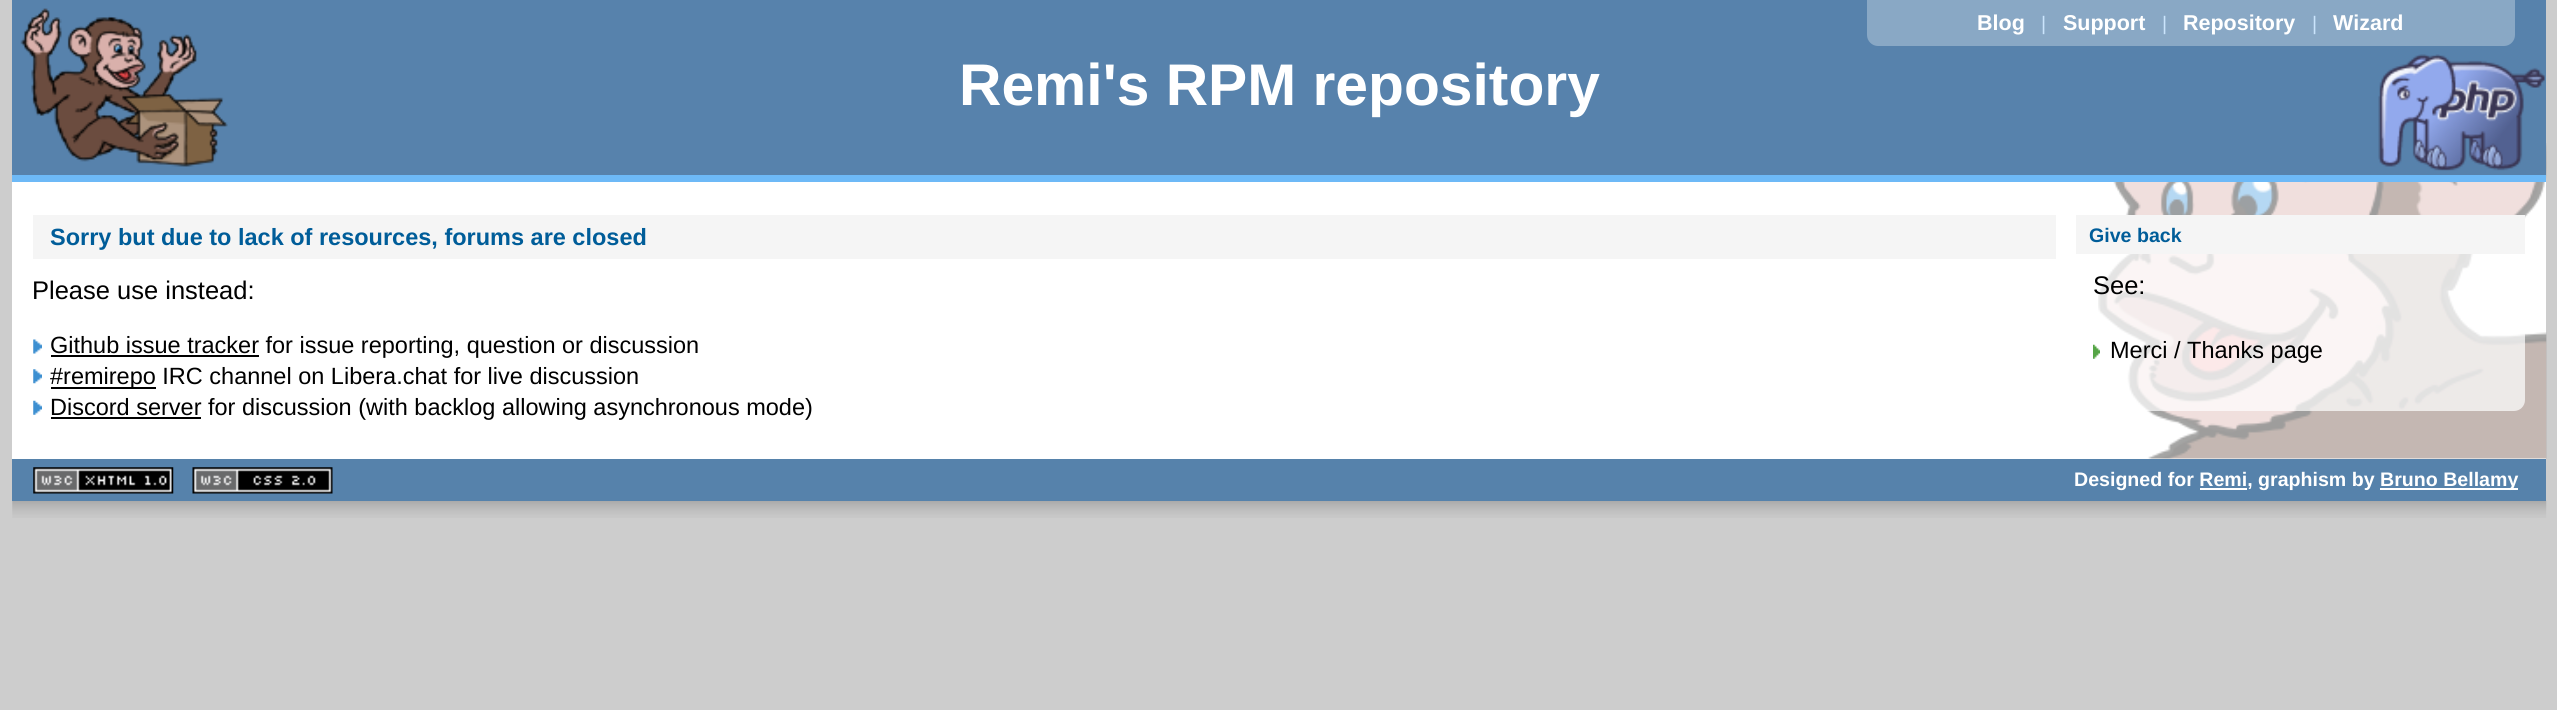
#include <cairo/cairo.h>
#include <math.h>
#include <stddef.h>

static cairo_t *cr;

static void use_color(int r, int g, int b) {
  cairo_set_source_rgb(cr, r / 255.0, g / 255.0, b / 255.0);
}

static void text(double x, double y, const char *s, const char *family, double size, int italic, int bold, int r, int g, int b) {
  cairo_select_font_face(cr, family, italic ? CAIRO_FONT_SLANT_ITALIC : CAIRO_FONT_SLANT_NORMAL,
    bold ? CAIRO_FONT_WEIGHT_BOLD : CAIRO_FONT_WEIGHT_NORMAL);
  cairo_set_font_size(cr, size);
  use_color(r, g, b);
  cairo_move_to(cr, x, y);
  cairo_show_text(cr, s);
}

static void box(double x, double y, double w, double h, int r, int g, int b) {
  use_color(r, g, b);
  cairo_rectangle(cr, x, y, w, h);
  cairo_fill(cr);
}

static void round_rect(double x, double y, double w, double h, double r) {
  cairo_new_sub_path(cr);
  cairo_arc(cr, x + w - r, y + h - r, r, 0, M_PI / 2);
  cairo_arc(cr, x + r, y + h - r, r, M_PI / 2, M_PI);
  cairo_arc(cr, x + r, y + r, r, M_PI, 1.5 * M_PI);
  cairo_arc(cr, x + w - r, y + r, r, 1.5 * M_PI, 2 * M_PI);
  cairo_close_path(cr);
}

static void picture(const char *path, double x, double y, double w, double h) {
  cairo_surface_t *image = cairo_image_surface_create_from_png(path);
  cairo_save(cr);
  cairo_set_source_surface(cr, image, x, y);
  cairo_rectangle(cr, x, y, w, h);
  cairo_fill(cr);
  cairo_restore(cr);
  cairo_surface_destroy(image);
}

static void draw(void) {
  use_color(205, 205, 205);
  cairo_paint(cr);
  box(12, 182, 2534, 277, 255, 255, 255);
  picture("img_01.png", 2098, 143, 449, 316);
  box(12, 0, 2534, 175, 87, 130, 172);
  use_color(137, 168, 197);
  cairo_new_path(cr);
  cairo_move_to(cr, 1867, 0);
  cairo_line_to(cr, 2515, 0);
  cairo_line_to(cr, 2515, 35);
  cairo_curve_to(cr, 2515, 41, 2510, 46, 2504, 46);
  cairo_line_to(cr, 1878, 46);
  cairo_curve_to(cr, 1872, 46, 1867, 41, 1867, 35);
  cairo_close_path(cr);
  cairo_fill(cr);
  picture("img_02.png", 2378, 54, 167, 117);
  box(12, 175, 2534, 7, 109, 185, 247);
  picture("img_03.png", 20, 8, 208, 159);
  box(33, 215, 2023, 44, 245, 245, 245);
  picture("img_04.png", 33, 339, 9, 15);
  box(51, 355, 208, 2, 0, 0, 0);
  picture("img_05.png", 33, 369, 9, 15);
  box(51, 387, 105, 2, 0, 0, 0);
  picture("img_06.png", 33, 400, 9, 15);
  box(51, 417, 150, 2, 0, 0, 0);
  cairo_set_source_rgba(cr, 1, 1, 1, 0.7);
  round_rect(2076, 215, 449, 196, 11);
  cairo_fill(cr);
  box(2076, 215, 449, 39, 245, 245, 245);
  picture("img_07.png", 2093, 344, 7, 15);
  picture("img_08.png", 12, 500, 2535, 18);
  box(12, 459, 2534, 42, 86, 130, 171);
  picture("img_09.png", 33, 467, 141, 27);
  picture("img_10.png", 192, 467, 141, 27);
  box(2380, 488, 138, 2, 255, 255, 255);
  box(2200, 488, 47, 2, 255, 255, 255);
  text(1977, 30, "Blog", "Liberation Sans", 21.5, 0, 1, 255, 255, 255);
  text(2041, 30, "|", "Liberation Sans", 19.6, 0, 0, 202, 228, 252);
  text(2063, 30, "Support", "Liberation Sans", 21.5, 0, 1, 255, 255, 255);
  text(2162, 30, "|", "Liberation Sans", 19.6, 0, 0, 202, 228, 252);
  text(2183, 30, "Repository", "Liberation Sans", 21.5, 0, 1, 255, 255, 255);
  text(2312, 30, "|", "Liberation Sans", 19.6, 0, 0, 202, 228, 252);
  text(2333, 30, "Wizard", "Liberation Sans", 21.5, 0, 1, 255, 255, 255);
  text(959, 105, "Remi's RPM repository", "Liberation Sans", 58.75, 0, 1, 255, 255, 255);
  text(50, 245, "Sorry but due to lack of resources, forums are closed", "Liberation Sans", 23.5, 0, 1, 0, 93, 153);
  text(32, 299, "Please use instead:", "Liberation Sans", 25.5, 0, 0, 0, 0, 0);
  text(50, 353, "Github issue tracker for issue reporting, question or discussion", "Liberation Sans", 23.5, 0, 0, 0, 0, 0);
  text(50, 384, "#remirepo IRC channel on Libera.chat for live discussion", "Liberation Sans", 23.5, 0, 0, 0, 0, 0);
  text(50, 415, "Discord server for discussion (with backlog allowing asynchronous mode)", "Liberation Sans", 23.5, 0, 0, 0, 0, 0);
  text(2089, 242, "Give back", "Liberation Sans", 19.6, 0, 1, 0, 93, 153);
  text(2093, 294, "See:", "Liberation Sans", 25.5, 0, 0, 0, 0, 0);
  text(2110, 358, "Merci / Thanks page", "Liberation Sans", 23.5, 0, 0, 0, 0, 0);
  text(2074, 486, "Designed for Remi, graphism by", "Liberation Sans", 19.6, 0, 1, 255, 255, 255);
  text(2380, 486, "Bruno Bellamy", "Liberation Sans", 19.6, 0, 1, 255, 255, 255);
}

int main(void) {
  cairo_surface_t *surface = cairo_image_surface_create(CAIRO_FORMAT_RGB24, 2557, 710);
  cr = cairo_create(surface);
  cairo_font_options_t *options = cairo_font_options_create();
  cairo_font_options_set_hint_metrics(options, CAIRO_HINT_METRICS_OFF);
  cairo_font_options_set_hint_style(options, CAIRO_HINT_STYLE_NONE);
  cairo_set_font_options(cr, options);
  cairo_set_miter_limit(cr, 4);
  draw();
  cairo_surface_write_to_png(surface, "out.png");
  cairo_font_options_destroy(options);
  cairo_destroy(cr);
  cairo_surface_destroy(surface);
  return 0;
}
